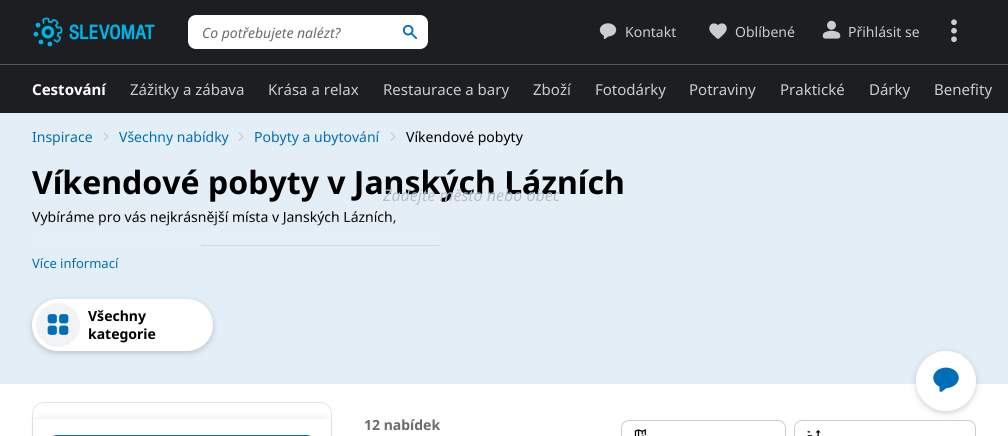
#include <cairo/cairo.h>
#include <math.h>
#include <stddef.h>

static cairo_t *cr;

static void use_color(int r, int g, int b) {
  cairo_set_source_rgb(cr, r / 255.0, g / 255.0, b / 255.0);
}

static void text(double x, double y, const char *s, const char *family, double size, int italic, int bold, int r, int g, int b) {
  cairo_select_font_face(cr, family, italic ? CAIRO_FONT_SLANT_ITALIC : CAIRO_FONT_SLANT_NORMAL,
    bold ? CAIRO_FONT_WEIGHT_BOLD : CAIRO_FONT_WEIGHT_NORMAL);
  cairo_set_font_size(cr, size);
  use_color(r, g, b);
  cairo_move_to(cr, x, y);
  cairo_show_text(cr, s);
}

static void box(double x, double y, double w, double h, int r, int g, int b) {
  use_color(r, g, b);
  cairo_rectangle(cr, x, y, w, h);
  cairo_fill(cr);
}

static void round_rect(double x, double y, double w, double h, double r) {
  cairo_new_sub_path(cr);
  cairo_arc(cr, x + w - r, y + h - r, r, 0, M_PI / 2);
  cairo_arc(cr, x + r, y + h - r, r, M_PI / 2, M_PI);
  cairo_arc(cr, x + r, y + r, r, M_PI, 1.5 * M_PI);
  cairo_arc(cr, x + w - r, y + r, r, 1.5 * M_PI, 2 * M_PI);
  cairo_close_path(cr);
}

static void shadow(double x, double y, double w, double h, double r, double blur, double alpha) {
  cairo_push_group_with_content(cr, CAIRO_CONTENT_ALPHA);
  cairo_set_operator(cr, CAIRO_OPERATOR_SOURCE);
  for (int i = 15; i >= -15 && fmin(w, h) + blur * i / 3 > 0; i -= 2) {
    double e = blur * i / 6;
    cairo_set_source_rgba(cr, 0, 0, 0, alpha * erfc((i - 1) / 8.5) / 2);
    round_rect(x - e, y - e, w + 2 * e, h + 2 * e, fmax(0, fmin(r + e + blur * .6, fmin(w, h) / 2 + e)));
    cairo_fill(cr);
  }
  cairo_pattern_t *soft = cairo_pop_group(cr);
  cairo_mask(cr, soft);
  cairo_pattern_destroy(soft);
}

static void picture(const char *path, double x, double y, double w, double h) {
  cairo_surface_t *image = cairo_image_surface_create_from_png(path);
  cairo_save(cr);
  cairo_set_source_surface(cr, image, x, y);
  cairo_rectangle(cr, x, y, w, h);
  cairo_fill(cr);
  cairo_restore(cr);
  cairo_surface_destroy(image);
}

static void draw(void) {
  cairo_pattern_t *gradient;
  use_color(255, 255, 255);
  cairo_paint(cr);
  box(0, 0, 1008, 64, 29, 30, 34);
  use_color(255, 255, 255);
  round_rect(188, 15, 240, 34, 8);
  cairo_fill(cr);
  picture("img_01.png", 402, 24, 16, 16);
  picture("img_02.png", 33, 17, 122, 30);
  picture("img_03.png", 599, 23, 18, 16);
  picture("img_04.png", 709, 23, 18, 16);
  picture("img_05.png", 822, 20, 19, 19);
  picture("img_06.png", 951, 19, 6, 24);
  box(0, 65, 1008, 48, 29, 30, 34);
  box(0, 64, 1008, 1, 81, 88, 93);
  box(0, 113, 1008, 271, 228, 238, 246);
  picture("img_07.png", 103, 132, 6, 9);
  picture("img_07.png", 238, 132, 6, 9);
  picture("img_07.png", 390, 132, 6, 9);
  box(201, 245, 238, 1, 0, 110, 185);
  use_color(0, 0, 0);
  shadow(32, 301, 181, 52, 26, 3, 0.18);
  use_color(255, 255, 255);
  round_rect(32, 299, 181, 52, 26);
  cairo_fill(cr);
  use_color(241, 243, 245);
  cairo_arc(cr, 58, 325, 22, 0, 2 * M_PI);
  cairo_fill(cr);
  picture("img_08.png", 47, 314, 22, 21);
  round_rect(32.5, 402.5, 299, 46, 11.5);
  use_color(227, 228, 230);
  cairo_set_line_width(cr, 1);
  cairo_stroke(cr);
  use_color(255, 255, 255);
  round_rect(33, 403, 298, 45, 12);
  cairo_fill(cr);
  use_color(0, 0, 0);
  shadow(33, 416, 298, 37, 8, 3, 0.06);
  box(33, 419, 298, 17, 255, 255, 255);
  round_rect(49.5, 435.5, 265, 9, 7.5);
  use_color(0, 110, 185);
  cairo_stroke(cr);
  round_rect(621.5, 420.5, 164, 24, 7.5);
  use_color(203, 204, 206);
  cairo_stroke(cr);
  picture("img_09.png", 634, 429, 12, 7);
  round_rect(794.5, 420.5, 181, 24, 7.5);
  cairo_stroke(cr);
  picture("img_10.png", 807, 430, 14, 6);
  use_color(0, 0, 0);
  shadow(916, 353, 60, 60, 30, 3, 0.18);
  use_color(255, 255, 255);
  cairo_arc(cr, 946, 381, 29.5, 0, 2 * M_PI);
  cairo_fill_preserve(cr);
  cairo_stroke(cr);
  picture("img_11.png", 933, 367, 26, 25);
  text(202, 38, "Co potřebujete nalézt?", "Noto Sans", 14, 1, 0, 107, 107, 112);
  text(625, 37, "Kontakt", "Noto Sans", 14, 0, 0, 203, 204, 206);
  text(735, 37, "Oblíbené", "Noto Sans", 14, 0, 0, 203, 204, 206);
  text(848, 37, "Přihlásit se", "Noto Sans", 14, 0, 0, 203, 204, 206);
  text(32, 95, "Cestování", "Noto Sans", 15, 0, 1, 255, 255, 255);
  text(130, 95, "Zážitky a zábava", "Noto Sans", 15, 0, 0, 203, 204, 206);
  text(268, 95, "Krása a relax", "Noto Sans", 15, 0, 0, 203, 204, 206);
  text(383, 95, "Restaurace a bary", "Noto Sans", 15, 0, 0, 203, 204, 206);
  text(533, 95, "Zboží", "Noto Sans", 15, 0, 0, 203, 204, 206);
  text(595, 95, "Fotodárky", "Noto Sans", 15, 0, 0, 203, 204, 206);
  text(689, 95, "Potraviny", "Noto Sans", 15, 0, 0, 203, 204, 206);
  text(780, 95, "Praktické", "Noto Sans", 15, 0, 0, 203, 204, 206);
  text(869, 95, "Dárky", "Noto Sans", 15, 0, 0, 203, 204, 206);
  text(934, 95, "Benefity", "Noto Sans", 15, 0, 0, 203, 204, 206);
  text(32, 142, "Inspirace", "Noto Sans", 14, 0, 0, 0, 110, 185);
  text(119, 142, "Všechny nabídky", "Noto Sans", 14, 0, 0, 0, 110, 185);
  text(254, 142, "Pobyty a ubytování", "Noto Sans", 14, 0, 0, 0, 110, 185);
  text(406, 142, "Víkendové pobyty", "Noto Sans", 14, 0, 0, 0, 0, 0);
  text(32, 194, "Víkendové pobyty v Janských Lázních", "Noto Sans", 32, 0, 1, 0, 0, 0);
  text(32, 222, "Vybíráme pro vás nejkrásnější místa v Janských Lázních,", "Noto Sans", 14, 0, 0, 0, 0, 0);
  gradient = cairo_pattern_create_linear(504, 218, 504, 282);
  cairo_pattern_add_color_stop_rgba(gradient, 0, 0.894, 0.933, 0.965, 0);
  cairo_pattern_add_color_stop_rgba(gradient, 0.5, 0.894, 0.933, 0.965, 1);
  cairo_set_source(cr, gradient);
  cairo_pattern_destroy(gradient);
  cairo_rectangle(cr, 34, 219, 405, 27);
  cairo_fill(cr);
  text(32, 268, "Více informací", "Noto Sans", 13, 0, 0, 0, 110, 185);
  text(88, 321, "Všechny", "Noto Sans", 14, 0, 1, 0, 0, 0);
  text(88, 339, "kategorie", "Noto Sans", 14, 0, 1, 0, 0, 0);
  text(364, 430, "12 nabídek", "Noto Sans", 14, 0, 1, 107, 107, 112);
  text(383, 201, "Zadejte město nebo obec", "Noto Sans", 16, 1, 0, 185, 193, 200);
}

int main(void) {
  cairo_surface_t *surface = cairo_image_surface_create(CAIRO_FORMAT_RGB24, 1008, 436);
  cr = cairo_create(surface);
  cairo_font_options_t *options = cairo_font_options_create();
  cairo_font_options_set_hint_metrics(options, CAIRO_HINT_METRICS_OFF);
  cairo_font_options_set_hint_style(options, CAIRO_HINT_STYLE_NONE);
  cairo_set_font_options(cr, options);
  cairo_set_miter_limit(cr, 4);
  draw();
  cairo_surface_write_to_png(surface, "out.png");
  cairo_font_options_destroy(options);
  cairo_destroy(cr);
  cairo_surface_destroy(surface);
  return 0;
}
